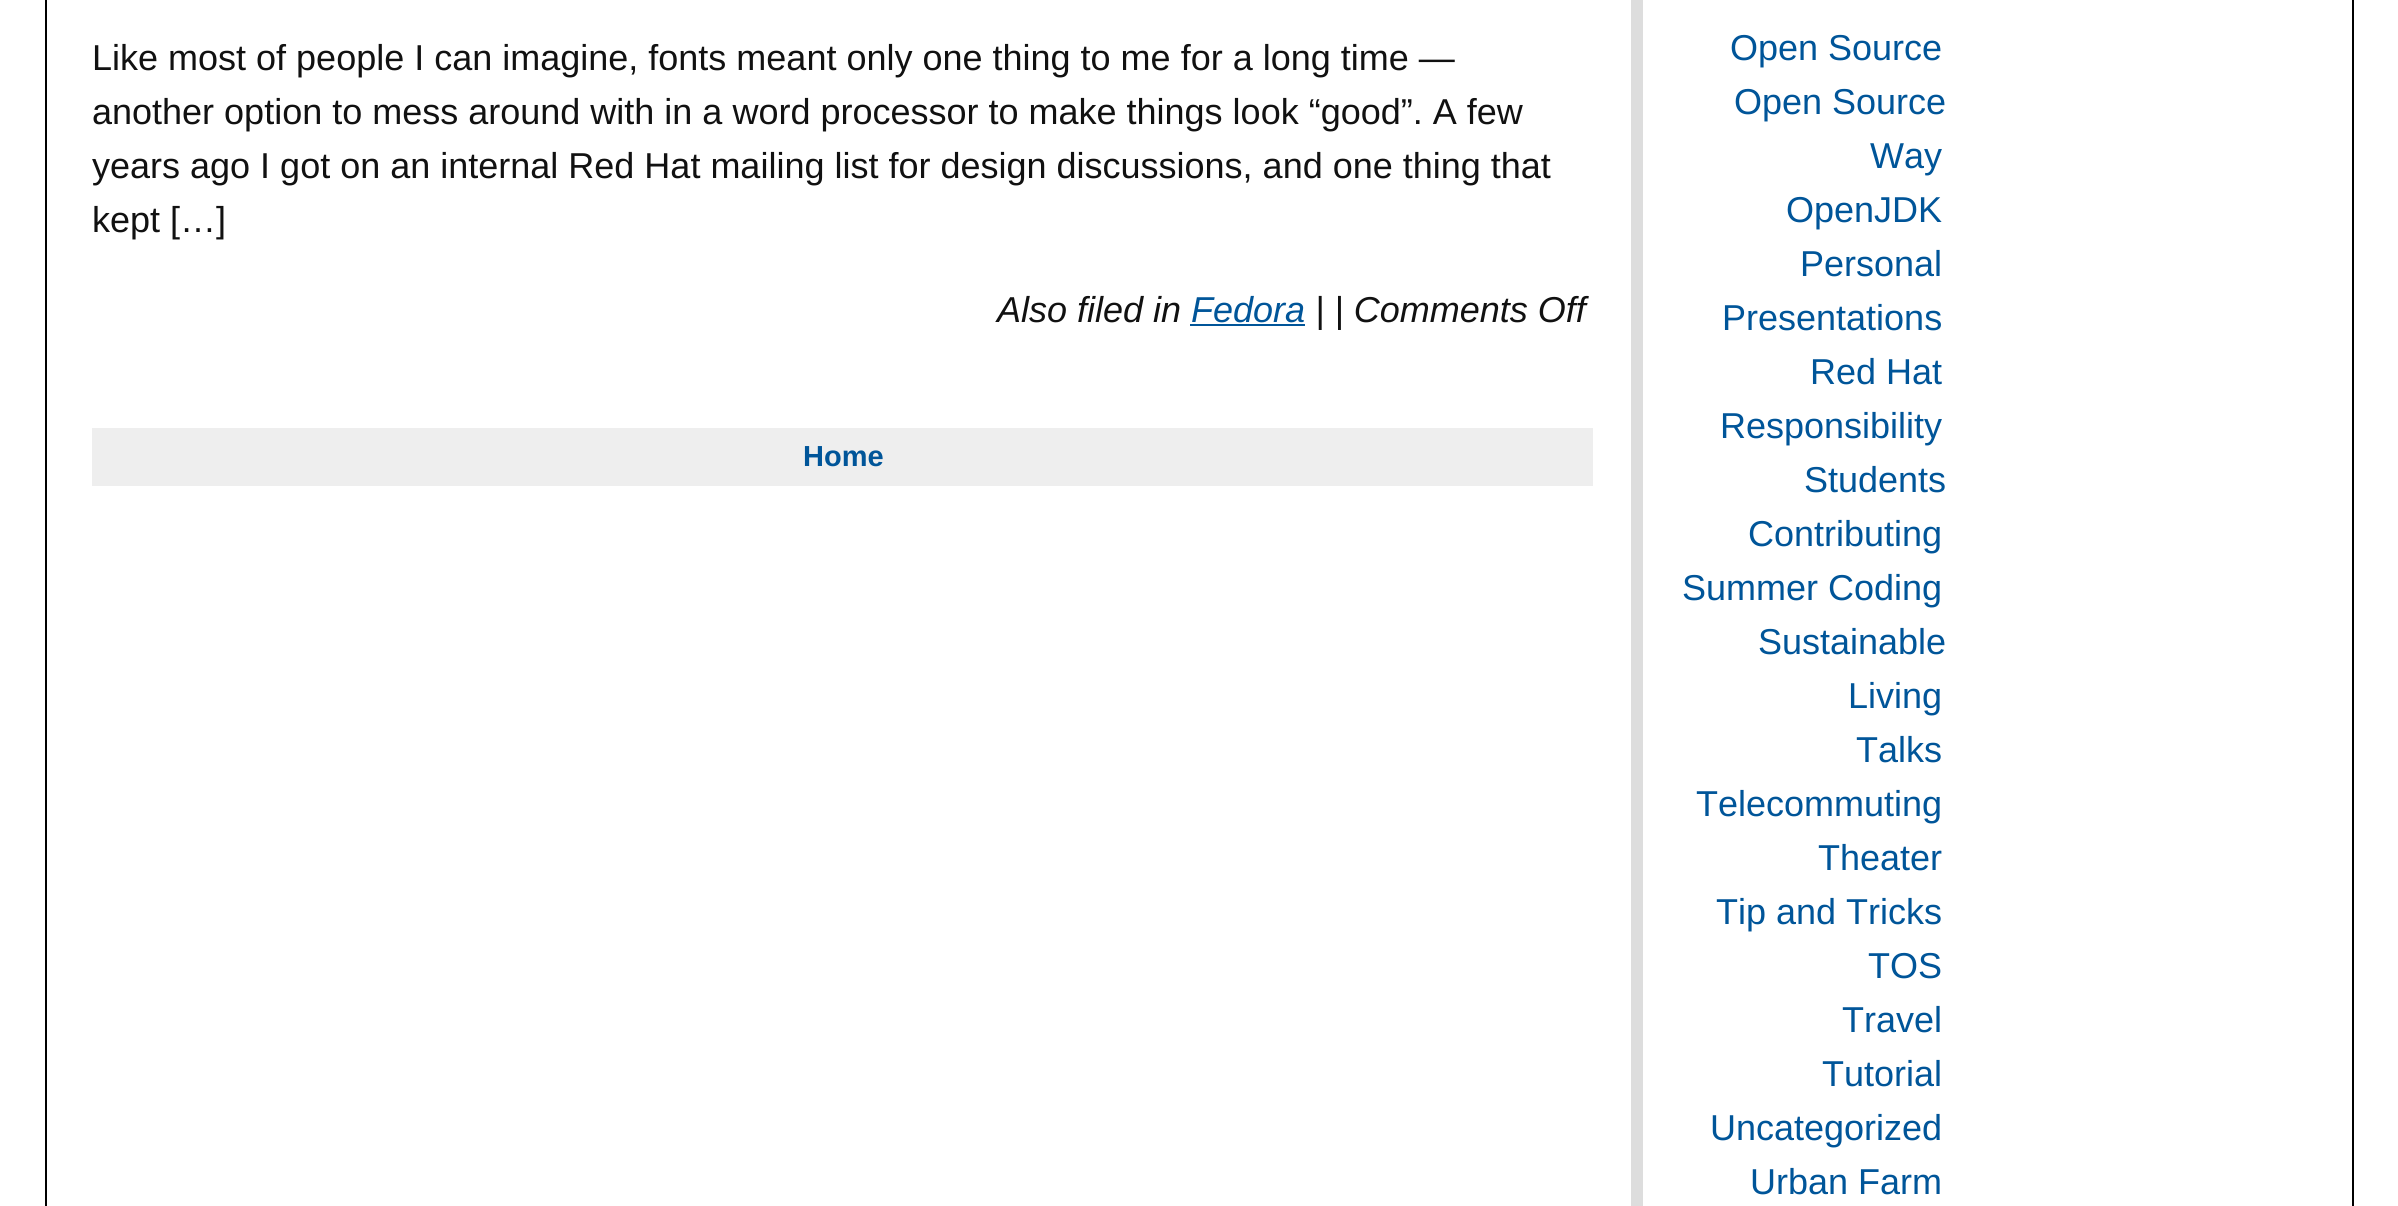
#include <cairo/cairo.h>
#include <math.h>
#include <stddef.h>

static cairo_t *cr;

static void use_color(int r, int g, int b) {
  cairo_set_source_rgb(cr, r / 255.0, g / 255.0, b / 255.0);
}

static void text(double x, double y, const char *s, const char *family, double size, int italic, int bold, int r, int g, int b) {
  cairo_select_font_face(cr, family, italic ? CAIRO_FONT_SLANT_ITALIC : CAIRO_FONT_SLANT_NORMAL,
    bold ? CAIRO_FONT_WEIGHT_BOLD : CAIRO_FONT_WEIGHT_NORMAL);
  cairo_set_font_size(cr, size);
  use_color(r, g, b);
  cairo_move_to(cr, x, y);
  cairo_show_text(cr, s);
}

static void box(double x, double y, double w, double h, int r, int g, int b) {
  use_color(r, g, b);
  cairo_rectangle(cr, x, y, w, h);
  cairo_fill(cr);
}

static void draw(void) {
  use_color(255, 255, 255);
  cairo_paint(cr);
  cairo_rectangle(cr, 46, -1, 2307, 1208);
  use_color(0, 0, 0);
  cairo_stroke(cr);
  box(1190, 324, 115, 2, 0, 85, 153);
  box(92, 428, 1501, 58, 238, 238, 238);
  box(1631, 0, 12, 1206, 221, 221, 221);
  text(92, 70, "Like most of people I can imagine, fonts meant only one thing to me for a long time —", "Liberation Sans", 36, 0, 0, 17, 17, 17);
  text(92, 124, "another option to mess around with in a word processor to make things look “good”. A few", "Liberation Sans", 36, 0, 0, 17, 17, 17);
  text(92, 178, "years ago I got on an internal Red Hat mailing list for design discussions, and one thing that", "Liberation Sans", 36, 0, 0, 17, 17, 17);
  text(92, 232, "kept […]", "Liberation Sans", 36, 0, 0, 17, 17, 17);
  text(997, 322, "Also filed in", "Liberation Sans", 36, 1, 0, 17, 17, 17);
  text(1191, 322, "Fedora", "Liberation Sans", 36, 1, 0, 0, 85, 153);
  text(1315, 322, "| | Comments Off", "Liberation Sans", 36, 1, 0, 17, 17, 17);
  text(803, 466, "Home", "Liberation Sans", 29, 0, 1, 0, 85, 153);
  text(1730, 60, "Open Source", "Liberation Sans", 36, 0, 0, 0, 85, 153);
  text(1734, 114, "Open Source", "Liberation Sans", 36, 0, 0, 0, 85, 153);
  text(1870, 168, "Way", "Liberation Sans", 36, 0, 0, 0, 85, 153);
  text(1786, 222, "OpenJDK", "Liberation Sans", 36, 0, 0, 0, 85, 153);
  text(1800, 276, "Personal", "Liberation Sans", 36, 0, 0, 0, 85, 153);
  text(1722, 330, "Presentations", "Liberation Sans", 36, 0, 0, 0, 85, 153);
  text(1810, 384, "Red Hat", "Liberation Sans", 36, 0, 0, 0, 85, 153);
  text(1720, 438, "Responsibility", "Liberation Sans", 36, 0, 0, 0, 85, 153);
  text(1804, 492, "Students", "Liberation Sans", 36, 0, 0, 0, 85, 153);
  text(1748, 546, "Contributing", "Liberation Sans", 36, 0, 0, 0, 85, 153);
  text(1682, 600, "Summer Coding", "Liberation Sans", 36, 0, 0, 0, 85, 153);
  text(1758, 654, "Sustainable", "Liberation Sans", 36, 0, 0, 0, 85, 153);
  text(1848, 708, "Living", "Liberation Sans", 36, 0, 0, 0, 85, 153);
  text(1856, 762, "Talks", "Liberation Sans", 36, 0, 0, 0, 85, 153);
  text(1696, 816, "Telecommuting", "Liberation Sans", 36, 0, 0, 0, 85, 153);
  text(1818, 870, "Theater", "Liberation Sans", 36, 0, 0, 0, 85, 153);
  text(1716, 924, "Tip and Tricks", "Liberation Sans", 36, 0, 0, 0, 85, 153);
  text(1868, 978, "TOS", "Liberation Sans", 36, 0, 0, 0, 85, 153);
  text(1842, 1032, "Travel", "Liberation Sans", 36, 0, 0, 0, 85, 153);
  text(1822, 1086, "Tutorial", "Liberation Sans", 36, 0, 0, 0, 85, 153);
  text(1710, 1140, "Uncategorized", "Liberation Sans", 36, 0, 0, 0, 85, 153);
  text(1750, 1194, "Urban Farm", "Liberation Sans", 36, 0, 0, 0, 85, 153);
}

int main(void) {
  cairo_surface_t *surface = cairo_image_surface_create(CAIRO_FORMAT_RGB24, 2398, 1206);
  cr = cairo_create(surface);
  cairo_font_options_t *options = cairo_font_options_create();
  cairo_font_options_set_hint_metrics(options, CAIRO_HINT_METRICS_OFF);
  cairo_font_options_set_hint_style(options, CAIRO_HINT_STYLE_NONE);
  cairo_set_font_options(cr, options);
  cairo_set_miter_limit(cr, 4);
  draw();
  cairo_surface_write_to_png(surface, "out.png");
  cairo_font_options_destroy(options);
  cairo_destroy(cr);
  cairo_surface_destroy(surface);
  return 0;
}
